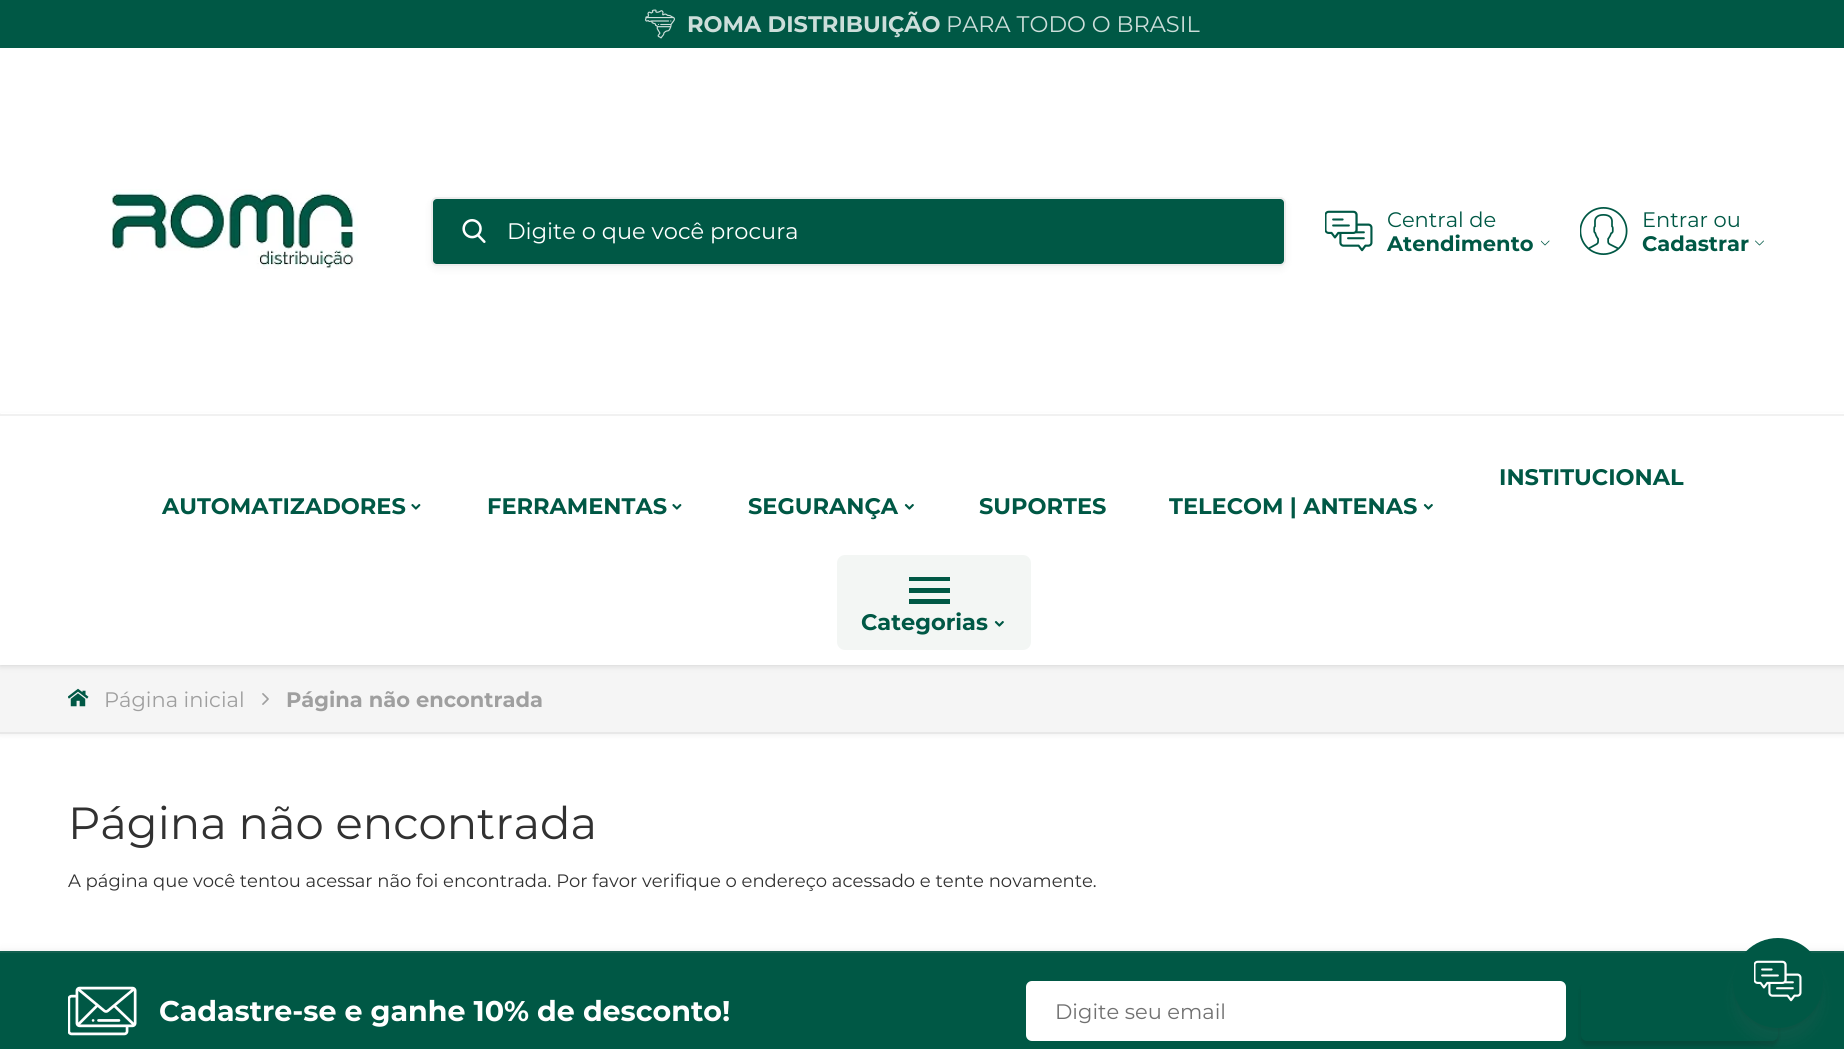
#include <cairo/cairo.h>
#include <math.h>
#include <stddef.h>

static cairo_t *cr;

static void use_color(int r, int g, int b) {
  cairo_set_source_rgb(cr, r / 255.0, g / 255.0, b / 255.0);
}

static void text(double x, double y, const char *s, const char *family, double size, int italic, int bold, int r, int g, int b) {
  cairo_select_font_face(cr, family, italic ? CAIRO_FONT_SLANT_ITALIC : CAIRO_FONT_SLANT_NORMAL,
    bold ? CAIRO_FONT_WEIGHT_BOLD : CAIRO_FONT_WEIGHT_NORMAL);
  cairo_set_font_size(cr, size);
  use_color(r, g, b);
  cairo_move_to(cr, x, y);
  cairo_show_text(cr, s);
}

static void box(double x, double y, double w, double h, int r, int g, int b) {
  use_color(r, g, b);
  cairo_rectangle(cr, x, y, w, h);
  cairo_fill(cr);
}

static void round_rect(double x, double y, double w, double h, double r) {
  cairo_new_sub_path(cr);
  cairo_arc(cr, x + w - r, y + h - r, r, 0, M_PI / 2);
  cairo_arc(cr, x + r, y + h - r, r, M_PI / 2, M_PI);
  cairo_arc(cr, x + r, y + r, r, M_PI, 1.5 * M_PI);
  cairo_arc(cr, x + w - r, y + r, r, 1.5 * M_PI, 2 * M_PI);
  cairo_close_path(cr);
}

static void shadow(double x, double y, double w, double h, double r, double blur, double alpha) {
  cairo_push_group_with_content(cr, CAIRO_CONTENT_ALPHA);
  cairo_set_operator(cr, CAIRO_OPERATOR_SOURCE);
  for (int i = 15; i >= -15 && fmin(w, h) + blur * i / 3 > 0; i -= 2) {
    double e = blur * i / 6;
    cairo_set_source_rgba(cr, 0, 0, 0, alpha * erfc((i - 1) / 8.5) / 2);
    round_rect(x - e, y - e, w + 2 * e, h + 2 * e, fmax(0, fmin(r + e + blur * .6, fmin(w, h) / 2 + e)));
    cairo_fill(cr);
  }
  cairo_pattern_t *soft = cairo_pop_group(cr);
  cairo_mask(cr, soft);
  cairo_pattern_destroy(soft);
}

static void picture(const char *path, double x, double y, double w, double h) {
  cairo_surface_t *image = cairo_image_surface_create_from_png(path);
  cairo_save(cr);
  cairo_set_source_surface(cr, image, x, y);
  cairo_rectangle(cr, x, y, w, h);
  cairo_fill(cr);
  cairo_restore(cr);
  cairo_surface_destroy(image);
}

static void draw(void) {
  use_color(255, 255, 255);
  cairo_paint(cr);
  box(0, 0, 1844, 48, 0, 88, 69);
  picture("img_01.png", 645, 9, 30, 30);
  use_color(137, 137, 137);
  shadow(0, 666, 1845, 69, 0, 3, 0.12);
  box(0, 665, 1844, 67, 245, 245, 245);
  use_color(82, 82, 82);
  shadow(0, 417, 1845, 249, 0, 3, 0.2);
  box(1, 413, 1843, 1, 255, 255, 255);
  box(0, 414, 1844, 2, 241, 241, 241);
  picture("img_02.png", 110, 189, 248, 80);
  use_color(128, 128, 128);
  shadow(431, 200, 855, 69, 6, 4, 0.1);
  use_color(0, 88, 69);
  round_rect(432, 198, 853, 67, 5);
  cairo_fill_preserve(cr);
  use_color(237, 237, 237);
  cairo_stroke(cr);
  picture("img_03.png", 462, 219, 24, 24);
  picture("img_04.png", 1325, 210, 48, 42);
  picture("img_05.png", 1541, 240, 9, 6);
  picture("img_06.png", 1580, 207, 48, 48);
  picture("img_07.png", 1755, 240, 9, 6);
  box(0, 416, 1844, 249, 255, 255, 255);
  picture("img_08.png", 411, 504, 10, 6);
  picture("img_08.png", 672, 504, 10, 6);
  picture("img_09.png", 904, 504, 10, 6);
  picture("img_09.png", 1423, 504, 10, 6);
  use_color(243, 246, 244);
  round_rect(837, 555, 194, 95, 8);
  cairo_fill(cr);
  box(909, 599, 41, 5, 0, 88, 69);
  box(909, 588, 41, 5, 0, 88, 69);
  box(909, 577, 41, 4, 0, 88, 69);
  picture("img_10.png", 994, 621, 10, 6);
  box(0, 732, 1844, 2, 232, 232, 232);
  picture("img_11.png", 68, 688, 21, 19);
  picture("img_12.png", 262, 693, 7, 12);
  use_color(158, 158, 158);
  shadow(0, 951, 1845, 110, 0, 4, 0.2);
  box(0, 953, 1844, 96, 0, 88, 69);
  box(0, 951, 1844, 2, 19, 95, 79);
  picture("img_13.png", 68, 986, 69, 50);
  use_color(255, 255, 255);
  round_rect(1026, 981, 540, 60, 6);
  cairo_fill(cr);
  use_color(20, 20, 20);
  shadow(1581, 986, 197, 60, 6, 2, 0.2);
  use_color(0, 88, 69);
  round_rect(1581, 981, 197, 60, 6);
  cairo_fill(cr);
  use_color(103, 103, 103);
  shadow(1733, 953, 90, 90, 45, 6, 0.1);
  use_color(0, 0, 0);
  shadow(1733, 941, 90, 90, 45, 1, 0.04);
  use_color(0, 88, 69);
  cairo_arc(cr, 1778, 983, 45, 0, 2 * M_PI);
  cairo_fill(cr);
  picture("img_14.png", 1754, 960, 48, 42);
  text(687, 32, "ROMA DISTRIBUIÇÃO", "Montserrat", 22.5, 0, 1, 204, 222, 218);
  text(946, 32, "PARA TODO O BRASIL", "Montserrat", 22.5, 0, 0, 204, 222, 218);
  text(507, 239, "Digite o que você procura", "Montserrat", 22.5, 0, 0, 255, 255, 255);
  text(1387, 227, "Central de", "Montserrat", 21, 0, 0, 0, 88, 69);
  text(1387, 251, "Atendimento", "Montserrat", 21, 0, 1, 0, 88, 69);
  text(1642, 227, "Entrar ou", "Montserrat", 21, 0, 0, 0, 88, 69);
  text(1642, 251, "Cadastrar", "Montserrat", 21, 0, 1, 0, 88, 69);
  text(1499, 485, "INSTITUCIONAL", "Montserrat", 22.5, 0, 1, 0, 88, 69);
  text(162, 514, "AUTOMATIZADORES", "Montserrat", 22.5, 0, 1, 0, 88, 69);
  text(487, 514, "FERRAMENTAS", "Montserrat", 22.5, 0, 1, 0, 88, 69);
  text(748, 514, "SEGURANÇA", "Montserrat", 22.5, 0, 1, 0, 88, 69);
  text(979, 514, "SUPORTES", "Montserrat", 22.5, 0, 1, 0, 88, 69);
  text(1169, 514, "TELECOM | ANTENAS", "Montserrat", 22.5, 0, 1, 0, 88, 69);
  text(861, 630, "Categorias", "Montserrat", 22.5, 0, 1, 0, 88, 69);
  text(104, 707, "Página inicial", "Montserrat", 21, 0, 0, 159, 159, 159);
  text(286, 707, "Página não encontrada", "Montserrat", 21, 0, 1, 159, 159, 159);
  text(68, 839, "Página não encontrada", "Montserrat", 45, 0, 0, 49, 49, 49);
  text(68, 887, "A página que você tentou acessar não foi encontrada. Por favor verifique o endereço acessado e tente novamente.", "Montserrat", 18, 0, 0, 49, 49, 49);
  text(159, 1021, "Cadastre-se e ganhe 10% de desconto!", "Montserrat", 28.5, 0, 1, 255, 255, 255);
  text(1055, 1019, "Digite seu email", "Montserrat", 21, 0, 0, 113, 113, 113);
}

int main(void) {
  cairo_surface_t *surface = cairo_image_surface_create(CAIRO_FORMAT_RGB24, 1844, 1049);
  cr = cairo_create(surface);
  cairo_font_options_t *options = cairo_font_options_create();
  cairo_font_options_set_hint_metrics(options, CAIRO_HINT_METRICS_OFF);
  cairo_font_options_set_hint_style(options, CAIRO_HINT_STYLE_NONE);
  cairo_set_font_options(cr, options);
  cairo_set_miter_limit(cr, 4);
  draw();
  cairo_surface_write_to_png(surface, "out.png");
  cairo_font_options_destroy(options);
  cairo_destroy(cr);
  cairo_surface_destroy(surface);
  return 0;
}
